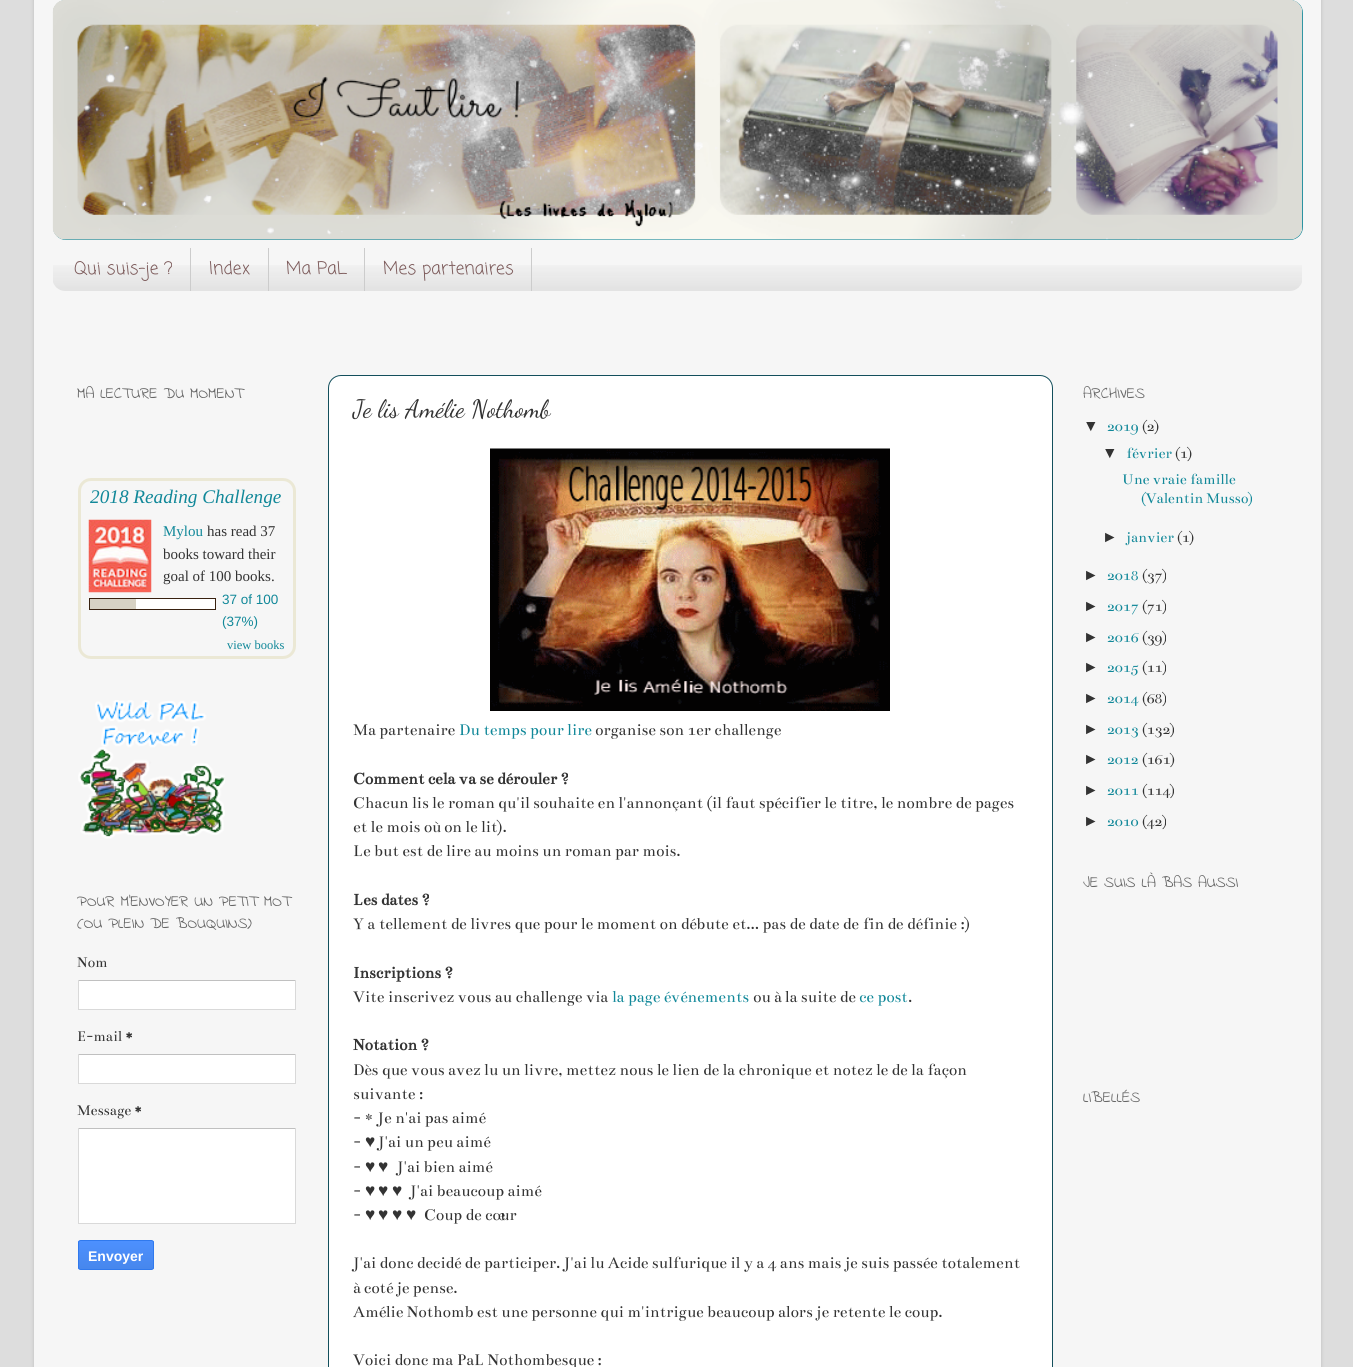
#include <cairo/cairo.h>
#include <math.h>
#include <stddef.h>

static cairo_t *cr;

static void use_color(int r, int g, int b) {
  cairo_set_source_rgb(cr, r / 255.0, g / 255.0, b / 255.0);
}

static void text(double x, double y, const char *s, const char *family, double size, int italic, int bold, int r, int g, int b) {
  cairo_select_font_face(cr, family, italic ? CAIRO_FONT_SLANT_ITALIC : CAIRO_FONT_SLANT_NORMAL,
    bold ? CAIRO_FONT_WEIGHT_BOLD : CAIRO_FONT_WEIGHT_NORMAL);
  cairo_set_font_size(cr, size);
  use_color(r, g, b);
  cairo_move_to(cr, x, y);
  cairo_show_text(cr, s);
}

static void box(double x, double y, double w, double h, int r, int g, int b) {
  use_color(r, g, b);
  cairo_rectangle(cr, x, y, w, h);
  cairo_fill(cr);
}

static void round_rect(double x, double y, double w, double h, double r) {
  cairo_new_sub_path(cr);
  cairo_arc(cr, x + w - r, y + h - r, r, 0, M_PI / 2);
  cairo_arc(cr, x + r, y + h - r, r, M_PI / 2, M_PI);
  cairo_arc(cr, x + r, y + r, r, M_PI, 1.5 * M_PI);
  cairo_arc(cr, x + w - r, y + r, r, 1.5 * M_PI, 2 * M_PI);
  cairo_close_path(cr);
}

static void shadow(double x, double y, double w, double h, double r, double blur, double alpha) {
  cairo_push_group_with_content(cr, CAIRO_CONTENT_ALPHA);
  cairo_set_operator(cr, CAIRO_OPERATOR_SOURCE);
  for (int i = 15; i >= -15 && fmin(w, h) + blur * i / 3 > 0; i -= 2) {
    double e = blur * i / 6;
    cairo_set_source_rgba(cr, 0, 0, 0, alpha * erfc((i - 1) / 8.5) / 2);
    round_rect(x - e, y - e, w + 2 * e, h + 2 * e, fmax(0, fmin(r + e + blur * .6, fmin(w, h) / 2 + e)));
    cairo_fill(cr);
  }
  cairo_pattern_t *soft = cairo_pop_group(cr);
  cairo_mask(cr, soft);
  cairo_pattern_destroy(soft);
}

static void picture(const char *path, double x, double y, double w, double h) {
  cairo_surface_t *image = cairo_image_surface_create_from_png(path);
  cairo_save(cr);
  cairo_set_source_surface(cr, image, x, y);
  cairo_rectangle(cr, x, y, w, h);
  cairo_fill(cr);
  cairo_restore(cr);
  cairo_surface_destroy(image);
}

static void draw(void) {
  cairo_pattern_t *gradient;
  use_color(221, 221, 221);
  cairo_paint(cr);
  use_color(0, 0, 0);
  shadow(34, -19, 1287, 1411, 19, 2, 0.15);
  box(34, 0, 1287, 1367, 246, 246, 246);
  use_color(17, 136, 153);
  round_rect(53, 0, 1250, 240, 13);
  cairo_fill(cr);
  picture("img_01.png", 53, 0, 1250, 54);
  picture("img_02.png", 52, 0, 1251, 240);
  picture("img_03.png", 53, 265, 1249, 26);
  box(190, 248, 1, 43, 204, 204, 204);
  box(268, 248, 1, 43, 204, 204, 204);
  box(364, 248, 1, 43, 204, 204, 204);
  box(531, 248, 1, 43, 204, 204, 204);
  round_rect(79.5, 479.5, 215, 178, 11.5);
  use_color(235, 232, 213);
  cairo_set_line_width(cr, 3);
  cairo_stroke(cr);
  picture("img_04.png", 88, 519, 64, 74);
  box(136, 599, 79, 10, 255, 255, 255);
  cairo_rectangle(cr, 89.5, 598.5, 126, 11);
  use_color(56, 33, 16);
  cairo_set_line_width(cr, 1);
  cairo_stroke(cr);
  box(90, 599, 46, 10, 215, 210, 196);
  picture("img_05.png", 78, 700, 147, 139);
  box(79, 981, 216, 28, 255, 255, 255);
  box(78, 980, 218, 1, 192, 192, 192);
  box(295, 980, 1, 30, 217, 217, 217);
  box(78, 1009, 218, 1, 217, 217, 217);
  box(78, 980, 1, 30, 217, 217, 217);
  box(79, 1055, 216, 28, 255, 255, 255);
  box(78, 1054, 218, 1, 192, 192, 192);
  box(295, 1054, 1, 30, 217, 217, 217);
  box(78, 1083, 218, 1, 217, 217, 217);
  box(78, 1054, 1, 30, 217, 217, 217);
  box(79, 1129, 216, 94, 255, 255, 255);
  box(78, 1128, 218, 1, 192, 192, 192);
  box(295, 1128, 1, 96, 217, 217, 217);
  box(78, 1223, 218, 1, 217, 217, 217);
  box(78, 1128, 1, 96, 217, 217, 217);
  cairo_save(cr);
  round_rect(78, 1240, 76, 30, 2.5);
  cairo_clip(cr);
  gradient = cairo_pattern_create_linear(116, 1241, 116, 1269);
  cairo_pattern_add_color_stop_rgba(gradient, 0, 0.302, 0.565, 0.996, 1);
  cairo_pattern_add_color_stop_rgba(gradient, 1, 0.278, 0.529, 0.929, 1);
  cairo_set_source(cr, gradient);
  cairo_pattern_destroy(gradient);
  cairo_rectangle(cr, 78, 1241, 76, 28);
  cairo_fill(cr);
  cairo_restore(cr);
  round_rect(78.5, 1240.5, 75, 29, 2);
  use_color(48, 121, 237);
  cairo_stroke(cr);
  use_color(255, 255, 255);
  round_rect(328.5, 375.5, 724, 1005, 12.5);
  cairo_fill_preserve(cr);
  use_color(19, 79, 92);
  cairo_stroke(cr);
  picture("img_06.png", 490, 448, 400, 263);
  text(74, 274, "Qui suis-je ?", "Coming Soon", 17.5, 0, 0, 125, 91, 91);
  text(209, 274, "Index", "Coming Soon", 17.5, 0, 0, 125, 91, 91);
  text(286, 274, "Ma PaL", "Coming Soon", 17.5, 0, 0, 125, 91, 91);
  text(383, 274, "Mes partenaires", "Coming Soon", 17.5, 0, 0, 125, 91, 91);
  text(77, 398, "MA LECTURE DU MOMENT", "Indie Flower", 15.75, 0, 0, 102, 102, 102);
  text(90, 503, "2018 Reading Challenge", "Liberation Serif", 19.25, 1, 0, 17, 136, 153);
  text(163, 536, "Mylou", "Liberation Serif", 15, 0, 0, 17, 136, 153);
  text(207, 536, "has read 37", "Liberation Serif", 15, 0, 0, 51, 51, 51);
  text(163, 559, "books toward their", "Liberation Serif", 15, 0, 0, 51, 51, 51);
  text(163, 581, "goal of 100 books.", "Liberation Serif", 15, 0, 0, 51, 51, 51);
  text(222, 604, "37 of 100", "Liberation Sans", 13.5, 0, 0, 17, 136, 153);
  text(222, 626, "(37%)", "Liberation Sans", 13.5, 0, 0, 17, 136, 153);
  text(227, 649, "view books", "Liberation Serif", 12.5, 0, 0, 17, 136, 153);
  text(77, 906, "POUR M'ENVOYER UN PETIT MOT", "Indie Flower", 15.75, 0, 0, 102, 102, 102);
  text(77, 928, "(OU PLEIN DE BOUQUINS)", "Indie Flower", 15.75, 0, 0, 102, 102, 102);
  text(77, 967, "Nom", "Bentham", 15.75, 0, 0, 51, 51, 51);
  text(77, 1041, "E-mail", "Bentham", 15.75, 0, 0, 51, 51, 51);
  text(125, 1041, "*", "Bentham", 15.75, 0, 1, 51, 51, 51);
  text(77, 1115, "Message", "Bentham", 15.75, 0, 0, 51, 51, 51);
  text(134, 1115, "*", "Bentham", 15.75, 0, 1, 51, 51, 51);
  text(88, 1261, "Envoyer", "Liberation Sans", 14, 0, 1, 255, 255, 255);
  text(353, 417, "Je lis Amélie Nothomb", "Dancing Script", 25, 0, 0, 51, 51, 51);
  text(353, 735, "Ma partenaire", "Bentham", 17.3, 0, 0, 51, 51, 51);
  text(459, 735, "Du temps pour lire", "Bentham", 17.3, 0, 0, 17, 136, 153);
  text(595, 735, "organise son 1er challenge", "Bentham", 17.3, 0, 0, 51, 51, 51);
  text(353, 784, "Comment cela va se dérouler ?", "Bentham", 17.3, 0, 1, 51, 51, 51);
  text(353, 808, "Chacun lis le roman qu'il souhaite en l'annonçant (il faut spécifier le titre, le nombre de pages", "Bentham", 17.3, 0, 0, 51, 51, 51);
  text(353, 832, "et le mois où on le lit).", "Bentham", 17.3, 0, 0, 51, 51, 51);
  text(353, 856, "Le but est de lire au moins un roman par mois.", "Bentham", 17.3, 0, 0, 51, 51, 51);
  text(353, 905, "Les dates ?", "Bentham", 17.3, 0, 1, 51, 51, 51);
  text(353, 929, "Y a tellement de livres que pour le moment on débute et... pas de date de fin de définie :)", "Bentham", 17.3, 0, 0, 51, 51, 51);
  text(353, 978, "Inscriptions ?", "Bentham", 17.3, 0, 1, 51, 51, 51);
  text(353, 1002, "Vite inscrivez vous au challenge via", "Bentham", 17.3, 0, 0, 51, 51, 51);
  text(612, 1002, "la page événements", "Bentham", 17.3, 0, 0, 17, 136, 153);
  text(753, 1002, "ou à la suite de", "Bentham", 17.3, 0, 0, 51, 51, 51);
  text(859, 1002, "ce post", "Bentham", 17.3, 0, 0, 17, 136, 153);
  text(908, 1002, ".", "Bentham", 17.3, 0, 0, 51, 51, 51);
  text(353, 1050, "Notation ?", "Bentham", 17.3, 0, 1, 51, 51, 51);
  text(353, 1075, "Dès que vous avez lu un livre, mettez nous le lien de la chronique et notez le de la façon", "Bentham", 17.3, 0, 0, 51, 51, 51);
  text(353, 1099, "suivante :", "Bentham", 17.3, 0, 0, 51, 51, 51);
  text(353, 1123, "- * Je n'ai pas aimé", "Bentham", 17.3, 0, 0, 51, 51, 51);
  text(353, 1147, "-", "Bentham", 17.3, 0, 0, 51, 51, 51);
  text(365, 1147, "♥", "Liberation Serif", 17.3, 0, 0, 51, 51, 51);
  text(378, 1147, "J'ai un peu aimé", "Bentham", 17.3, 0, 0, 51, 51, 51);
  text(353, 1172, "-", "Bentham", 17.3, 0, 0, 51, 51, 51);
  text(365, 1172, "♥", "Liberation Serif", 17.3, 0, 0, 51, 51, 51);
  text(378, 1172, "♥", "Liberation Serif", 17.3, 0, 0, 51, 51, 51);
  text(397, 1172, "J'ai bien aimé", "Bentham", 17.3, 0, 0, 51, 51, 51);
  text(353, 1196, "-", "Bentham", 17.3, 0, 0, 51, 51, 51);
  text(365, 1196, "♥", "Liberation Serif", 17.3, 0, 0, 51, 51, 51);
  text(378, 1196, "♥", "Liberation Serif", 17.3, 0, 0, 51, 51, 51);
  text(392, 1196, "♥", "Liberation Serif", 17.3, 0, 0, 51, 51, 51);
  text(410, 1196, "J'ai beaucoup aimé", "Bentham", 17.3, 0, 0, 51, 51, 51);
  text(353, 1220, "-", "Bentham", 17.3, 0, 0, 51, 51, 51);
  text(365, 1220, "♥", "Liberation Serif", 17.3, 0, 0, 51, 51, 51);
  text(378, 1220, "♥", "Liberation Serif", 17.3, 0, 0, 51, 51, 51);
  text(392, 1220, "♥", "Liberation Serif", 17.3, 0, 0, 51, 51, 51);
  text(406, 1220, "♥", "Liberation Serif", 17.3, 0, 0, 51, 51, 51);
  text(424, 1220, "Coup de cœur", "Bentham", 17.3, 0, 0, 51, 51, 51);
  text(353, 1268, "J'ai donc decidé de participer. J'ai lu Acide sulfurique il y a 4 ans mais je suis passée totalement", "Bentham", 17.3, 0, 0, 51, 51, 51);
  text(353, 1293, "à coté je pense.", "Bentham", 17.3, 0, 0, 51, 51, 51);
  text(353, 1317, "Amélie Nothomb est une personne qui m'intrigue beaucoup alors je retente le coup.", "Bentham", 17.3, 0, 0, 51, 51, 51);
  text(353, 1365, "Voici donc ma PaL Nothombesque :", "Bentham", 17.3, 0, 0, 51, 51, 51);
  text(1083, 398, "ARCHIVES", "Indie Flower", 15.75, 0, 0, 102, 102, 102);
  text(1083, 431, "▼", "Liberation Sans", 15.75, 0, 0, 51, 51, 51);
  text(1107, 431, "2019", "Bentham", 15.75, 0, 0, 17, 136, 153);
  text(1142, 431, "(2)", "Bentham", 15.75, 0, 0, 51, 51, 51);
  text(1102, 458, "▼", "Liberation Sans", 15.75, 0, 0, 51, 51, 51);
  text(1126, 458, "février", "Bentham", 15.75, 0, 0, 17, 136, 153);
  text(1175, 458, "(1)", "Bentham", 15.75, 0, 0, 51, 51, 51);
  text(1122, 484, "Une vraie famille", "Bentham", 15.75, 0, 0, 17, 136, 153);
  text(1141, 503, "(Valentin Musso)", "Bentham", 15.75, 0, 0, 17, 136, 153);
  text(1102, 542, "►", "Liberation Sans", 15.75, 0, 0, 51, 51, 51);
  text(1126, 542, "janvier", "Bentham", 15.75, 0, 0, 17, 136, 153);
  text(1177, 542, "(1)", "Bentham", 15.75, 0, 0, 51, 51, 51);
  text(1083, 580, "►", "Liberation Sans", 15.75, 0, 0, 51, 51, 51);
  text(1107, 580, "2018", "Bentham", 15.75, 0, 0, 17, 136, 153);
  text(1142, 580, "(37)", "Bentham", 15.75, 0, 0, 51, 51, 51);
  text(1083, 611, "►", "Liberation Sans", 15.75, 0, 0, 51, 51, 51);
  text(1107, 611, "2017", "Bentham", 15.75, 0, 0, 17, 136, 153);
  text(1142, 611, "(71)", "Bentham", 15.75, 0, 0, 51, 51, 51);
  text(1083, 642, "►", "Liberation Sans", 15.75, 0, 0, 51, 51, 51);
  text(1107, 642, "2016", "Bentham", 15.75, 0, 0, 17, 136, 153);
  text(1142, 642, "(39)", "Bentham", 15.75, 0, 0, 51, 51, 51);
  text(1083, 672, "►", "Liberation Sans", 15.75, 0, 0, 51, 51, 51);
  text(1107, 672, "2015", "Bentham", 15.75, 0, 0, 17, 136, 153);
  text(1142, 672, "(11)", "Bentham", 15.75, 0, 0, 51, 51, 51);
  text(1083, 703, "►", "Liberation Sans", 15.75, 0, 0, 51, 51, 51);
  text(1107, 703, "2014", "Bentham", 15.75, 0, 0, 17, 136, 153);
  text(1142, 703, "(68)", "Bentham", 15.75, 0, 0, 51, 51, 51);
  text(1083, 734, "►", "Liberation Sans", 15.75, 0, 0, 51, 51, 51);
  text(1107, 734, "2013", "Bentham", 15.75, 0, 0, 17, 136, 153);
  text(1142, 734, "(132)", "Bentham", 15.75, 0, 0, 51, 51, 51);
  text(1083, 764, "►", "Liberation Sans", 15.75, 0, 0, 51, 51, 51);
  text(1107, 764, "2012", "Bentham", 15.75, 0, 0, 17, 136, 153);
  text(1142, 764, "(161)", "Bentham", 15.75, 0, 0, 51, 51, 51);
  text(1083, 795, "►", "Liberation Sans", 15.75, 0, 0, 51, 51, 51);
  text(1107, 795, "2011", "Bentham", 15.75, 0, 0, 17, 136, 153);
  text(1142, 795, "(114)", "Bentham", 15.75, 0, 0, 51, 51, 51);
  text(1083, 826, "►", "Liberation Sans", 15.75, 0, 0, 51, 51, 51);
  text(1107, 826, "2010", "Bentham", 15.75, 0, 0, 17, 136, 153);
  text(1142, 826, "(42)", "Bentham", 15.75, 0, 0, 51, 51, 51);
  text(1083, 887, "JE SUIS LÀ BAS AUSSI", "Indie Flower", 15.75, 0, 0, 102, 102, 102);
  text(1083, 1102, "LIBELLÉS", "Indie Flower", 15.75, 0, 0, 102, 102, 102);
}

int main(void) {
  cairo_surface_t *surface = cairo_image_surface_create(CAIRO_FORMAT_RGB24, 1353, 1367);
  cr = cairo_create(surface);
  cairo_font_options_t *options = cairo_font_options_create();
  cairo_font_options_set_hint_metrics(options, CAIRO_HINT_METRICS_OFF);
  cairo_font_options_set_hint_style(options, CAIRO_HINT_STYLE_NONE);
  cairo_set_font_options(cr, options);
  cairo_set_miter_limit(cr, 4);
  draw();
  cairo_surface_write_to_png(surface, "out.png");
  cairo_font_options_destroy(options);
  cairo_destroy(cr);
  cairo_surface_destroy(surface);
  return 0;
}
